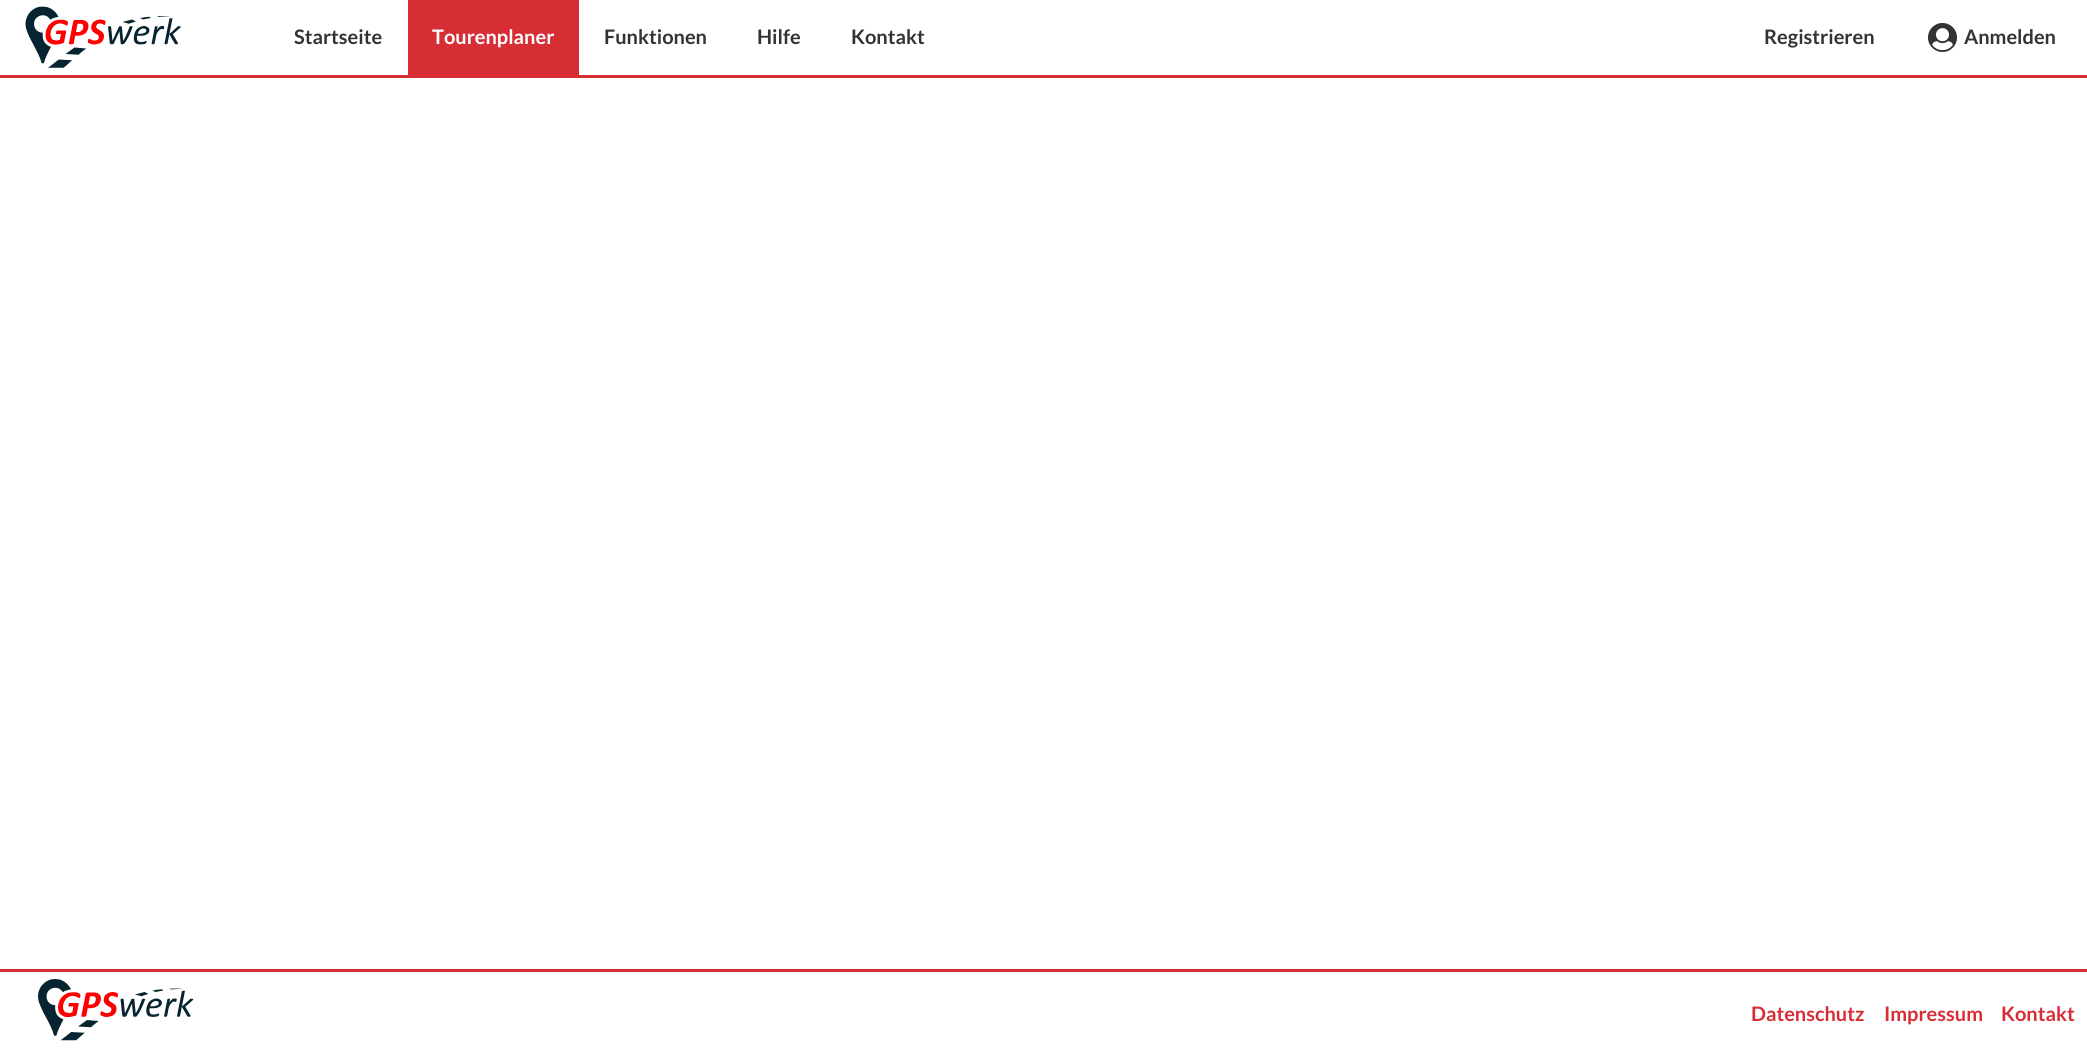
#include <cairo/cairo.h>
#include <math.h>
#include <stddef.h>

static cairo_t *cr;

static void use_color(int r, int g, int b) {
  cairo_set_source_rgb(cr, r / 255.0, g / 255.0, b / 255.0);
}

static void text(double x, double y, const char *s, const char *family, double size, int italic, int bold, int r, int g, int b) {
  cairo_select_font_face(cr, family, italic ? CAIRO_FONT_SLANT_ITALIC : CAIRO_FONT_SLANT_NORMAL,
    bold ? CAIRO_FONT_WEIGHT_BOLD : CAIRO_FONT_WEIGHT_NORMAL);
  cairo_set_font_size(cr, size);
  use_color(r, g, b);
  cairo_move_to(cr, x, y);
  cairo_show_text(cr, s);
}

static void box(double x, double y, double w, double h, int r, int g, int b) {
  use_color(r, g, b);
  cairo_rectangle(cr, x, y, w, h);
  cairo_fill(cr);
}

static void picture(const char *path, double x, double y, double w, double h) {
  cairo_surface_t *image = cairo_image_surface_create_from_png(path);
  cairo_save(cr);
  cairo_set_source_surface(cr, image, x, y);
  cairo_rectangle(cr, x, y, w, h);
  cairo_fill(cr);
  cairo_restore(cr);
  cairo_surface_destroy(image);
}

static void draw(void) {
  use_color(255, 255, 255);
  cairo_paint(cr);
  box(0, 75, 2087, 3, 215, 46, 54);
  picture("img_01.png", 25, 6, 156, 62);
  box(408, 0, 171, 75, 215, 46, 54);
  picture("img_02.png", 1928, 23, 29, 29);
  box(0, 969, 2087, 3, 215, 46, 54);
  picture("img_03.png", 38, 979, 156, 62);
  text(294, 44, "Startseite", "Lato", 20, 0, 1, 51, 51, 51);
  text(432, 44, "Tourenplaner", "Lato", 20, 0, 1, 255, 255, 255);
  text(604, 44, "Funktionen", "Lato", 20, 0, 1, 51, 51, 51);
  text(757, 44, "Hilfe", "Lato", 20, 0, 1, 51, 51, 51);
  text(851, 44, "Kontakt", "Lato", 20, 0, 1, 51, 51, 51);
  text(1764, 44, "Registrieren", "Lato", 20, 0, 1, 51, 51, 51);
  text(1964, 44, "Anmelden", "Lato", 20, 0, 1, 51, 51, 51);
  text(1751, 1021, "Datenschutz", "Lato", 20, 0, 1, 215, 46, 54);
  text(1884, 1021, "Impressum", "Lato", 20, 0, 1, 215, 46, 54);
  text(2001, 1021, "Kontakt", "Lato", 20, 0, 1, 215, 46, 54);
}

int main(void) {
  cairo_surface_t *surface = cairo_image_surface_create(CAIRO_FORMAT_RGB24, 2087, 1056);
  cr = cairo_create(surface);
  cairo_font_options_t *options = cairo_font_options_create();
  cairo_font_options_set_hint_metrics(options, CAIRO_HINT_METRICS_OFF);
  cairo_font_options_set_hint_style(options, CAIRO_HINT_STYLE_NONE);
  cairo_set_font_options(cr, options);
  cairo_set_miter_limit(cr, 4);
  draw();
  cairo_surface_write_to_png(surface, "out.png");
  cairo_font_options_destroy(options);
  cairo_destroy(cr);
  cairo_surface_destroy(surface);
  return 0;
}
